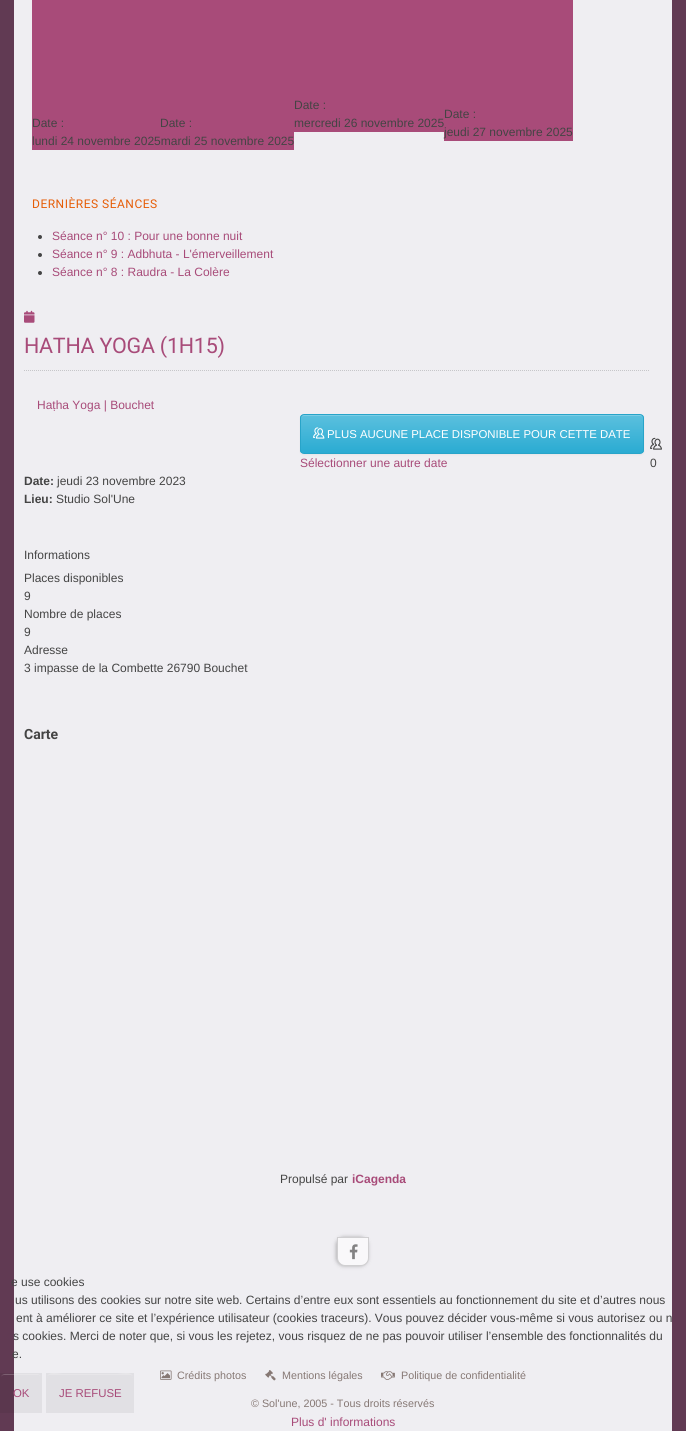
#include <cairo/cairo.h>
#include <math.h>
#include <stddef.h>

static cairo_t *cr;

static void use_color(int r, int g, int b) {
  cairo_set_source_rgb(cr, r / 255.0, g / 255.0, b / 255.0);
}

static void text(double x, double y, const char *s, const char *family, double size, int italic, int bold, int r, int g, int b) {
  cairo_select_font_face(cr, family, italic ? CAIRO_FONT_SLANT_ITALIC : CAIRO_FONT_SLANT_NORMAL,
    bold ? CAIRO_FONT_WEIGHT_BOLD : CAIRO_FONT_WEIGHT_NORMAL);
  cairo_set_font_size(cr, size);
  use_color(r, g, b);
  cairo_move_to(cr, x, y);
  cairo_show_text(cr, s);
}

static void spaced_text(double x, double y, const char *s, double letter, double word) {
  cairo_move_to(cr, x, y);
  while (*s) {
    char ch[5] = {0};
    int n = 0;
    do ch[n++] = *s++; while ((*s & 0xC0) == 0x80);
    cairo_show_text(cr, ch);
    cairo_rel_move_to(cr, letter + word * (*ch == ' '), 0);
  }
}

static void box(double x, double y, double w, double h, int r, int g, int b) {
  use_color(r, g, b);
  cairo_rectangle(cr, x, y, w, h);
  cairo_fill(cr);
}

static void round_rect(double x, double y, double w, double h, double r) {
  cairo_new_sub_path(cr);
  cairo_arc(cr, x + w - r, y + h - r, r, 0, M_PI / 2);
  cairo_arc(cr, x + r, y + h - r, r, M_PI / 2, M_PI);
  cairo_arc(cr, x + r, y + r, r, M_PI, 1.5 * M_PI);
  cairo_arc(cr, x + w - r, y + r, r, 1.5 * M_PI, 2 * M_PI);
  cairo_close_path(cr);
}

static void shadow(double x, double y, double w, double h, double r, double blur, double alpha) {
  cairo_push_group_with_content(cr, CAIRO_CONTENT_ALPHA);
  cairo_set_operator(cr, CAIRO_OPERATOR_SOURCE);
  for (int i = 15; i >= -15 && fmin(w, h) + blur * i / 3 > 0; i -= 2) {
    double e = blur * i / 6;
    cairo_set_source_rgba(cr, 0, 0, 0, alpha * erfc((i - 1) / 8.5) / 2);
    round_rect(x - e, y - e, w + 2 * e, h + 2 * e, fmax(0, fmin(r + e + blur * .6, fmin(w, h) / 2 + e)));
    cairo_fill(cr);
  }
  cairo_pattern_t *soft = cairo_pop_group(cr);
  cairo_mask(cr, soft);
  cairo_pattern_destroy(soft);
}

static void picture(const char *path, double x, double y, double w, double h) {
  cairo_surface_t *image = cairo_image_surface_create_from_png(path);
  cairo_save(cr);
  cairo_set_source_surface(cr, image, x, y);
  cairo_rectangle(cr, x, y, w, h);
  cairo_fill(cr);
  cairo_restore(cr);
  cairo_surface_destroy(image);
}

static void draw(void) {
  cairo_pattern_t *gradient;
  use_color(97, 58, 83);
  cairo_paint(cr);
  box(14, 0, 658, 1431, 239, 238, 242);
  box(32, 0, 262, 150, 168, 75, 121);
  box(294, 0, 150, 132, 168, 75, 121);
  box(444, 0, 129, 141, 168, 75, 121);
  use_color(68, 68, 68);
  cairo_arc(cr, 40, 237, 2, 0, 2 * M_PI);
  cairo_fill(cr);
  cairo_arc(cr, 40, 255, 2, 0, 2 * M_PI);
  cairo_fill(cr);
  cairo_arc(cr, 40, 273, 2, 0, 2 * M_PI);
  cairo_fill(cr);
  picture("img_01.png", 24, 310, 11, 13);
  cairo_new_path(cr);
  cairo_move_to(cr, 24, 370.5);
  cairo_line_to(cr, 649, 370.5);
  use_color(198, 198, 201);
  cairo_set_line_width(cr, 1);
  cairo_set_dash(cr, (double[]){1, 1}, 2, 0);
  cairo_stroke(cr);
  use_color(0, 0, 0);
  shadow(300, 415, 344, 40, 4, 1, 0.05);
  cairo_save(cr);
  round_rect(300, 414, 344, 40, 4);
  cairo_clip(cr);
  gradient = cairo_pattern_create_linear(472, 415, 472, 453);
  cairo_pattern_add_color_stop_rgba(gradient, 0, 0.357, 0.753, 0.871, 1);
  cairo_pattern_add_color_stop_rgba(gradient, 1, 0.165, 0.671, 0.824, 1);
  cairo_set_source(cr, gradient);
  cairo_pattern_destroy(gradient);
  cairo_rectangle(cr, 300, 415, 344, 38);
  cairo_fill(cr);
  cairo_restore(cr);
  use_color(123, 205, 229);
  cairo_new_path(cr);
  cairo_move_to(cr, 304, 416);
  cairo_line_to(cr, 640, 416);
  cairo_curve_to(cr, 642, 416, 643, 417, 643, 419);
  cairo_curve_to(cr, 643, 417, 642, 415, 640, 415);
  cairo_line_to(cr, 304, 415);
  cairo_curve_to(cr, 302, 415, 301, 417, 301, 419);
  cairo_curve_to(cr, 301, 417, 302, 416, 304, 416);
  cairo_close_path(cr);
  cairo_fill(cr);
  round_rect(300.5, 414.5, 343, 39, 3.5);
  use_color(40, 164, 201);
  cairo_set_dash(cr, NULL, 0, 0);
  cairo_stroke(cr);
  picture("img_02.png", 313, 427, 12, 12);
  picture("img_03.png", 650, 437, 12, 13);
  use_color(96, 95, 97);
  shadow(336, 1237, 32, 29, 8, 2, 0.45);
  use_color(249, 248, 250);
  cairo_new_path(cr);
  cairo_move_to(cr, 337.5, 1237.5);
  cairo_line_to(cr, 368.5, 1237.5);
  cairo_line_to(cr, 368.5, 1258);
  cairo_curve_to(cr, 368.5, 1262, 365, 1265.5, 361, 1265.5);
  cairo_line_to(cr, 345, 1265.5);
  cairo_curve_to(cr, 341, 1265.5, 337.5, 1262, 337.5, 1258);
  cairo_close_path(cr);
  cairo_fill_preserve(cr);
  use_color(208, 207, 209);
  cairo_stroke(cr);
  picture("img_04.png", 349, 1244, 9, 16);
  picture("img_05.png", 160, 1370, 12, 10);
  picture("img_06.png", 265, 1370, 11, 11);
  picture("img_07.png", 381, 1371, 14, 9);
  cairo_set_source_rgba(cr, 0, 0, 0, 0.06);
  cairo_rectangle(cr, 0, 1373, 42, 40);
  cairo_fill(cr);
  cairo_set_source_rgba(cr, 1, 1, 1, 0.2);
  cairo_new_path(cr);
  cairo_move_to(cr, 4, 1375);
  cairo_line_to(cr, 38, 1375);
  cairo_curve_to(cr, 40, 1375, 41, 1376, 41, 1378);
  cairo_curve_to(cr, 41, 1373, 36, 1374, 32, 1374);
  cairo_line_to(cr, 10, 1374);
  cairo_curve_to(cr, 6, 1374, 1, 1373, 1, 1378);
  cairo_curve_to(cr, 1, 1376, 2, 1375, 4, 1375);
  cairo_close_path(cr);
  cairo_fill(cr);
  cairo_set_source_rgba(cr, 0, 0, 0, 0.06);
  cairo_rectangle(cr, 46, 1373, 88, 40);
  cairo_fill(cr);
  use_color(231, 230, 233);
  cairo_new_path(cr);
  cairo_move_to(cr, 50, 1375);
  cairo_line_to(cr, 130, 1375);
  cairo_curve_to(cr, 132, 1375, 133, 1376, 133, 1378);
  cairo_curve_to(cr, 133, 1370, 120, 1374, 117, 1374);
  cairo_line_to(cr, 63, 1374);
  cairo_curve_to(cr, 60, 1374, 47, 1370, 47, 1378);
  cairo_curve_to(cr, 47, 1376, 48, 1375, 50, 1375);
  cairo_close_path(cr);
  cairo_fill(cr);
  text(32, 127, "Date :", "Liberation Sans", 12, 0, 0, 68, 68, 68);
  text(32, 145, "lundi 24 novembre 2025mardi 25 novembre 2025", "Liberation Sans", 12, 0, 0, 68, 68, 68);
  text(294, 109, "Date :", "Liberation Sans", 12, 0, 0, 68, 68, 68);
  text(294, 127, "mercredi 26 novembre 2025", "Liberation Sans", 12, 0, 0, 68, 68, 68);
  text(444, 118, "Date :", "Liberation Sans", 12, 0, 0, 68, 68, 68);
  text(444, 136, "jeudi 27 novembre 2025", "Liberation Sans", 12, 0, 0, 68, 68, 68);
  text(160, 127, "Date :", "Liberation Sans", 12, 0, 0, 68, 68, 68);
  cairo_select_font_face(cr, "Roboto", CAIRO_FONT_SLANT_NORMAL, CAIRO_FONT_WEIGHT_NORMAL);
  use_color(230, 94, 9);
  spaced_text(32, 208, "DERNIÈRES SÉANCES", 0.5, 0);
  text(52, 240, "Séance n° 10 : Pour une bonne nuit", "Liberation Sans", 12, 0, 0, 168, 75, 121);
  text(52, 258, "Séance n° 9 : Adbhuta - L'émerveillement", "Liberation Sans", 12, 0, 0, 168, 75, 121);
  text(52, 276, "Séance n° 8 : Raudra - La Colère", "Liberation Sans", 12, 0, 0, 168, 75, 121);
  cairo_select_font_face(cr, "Roboto", CAIRO_FONT_SLANT_NORMAL, CAIRO_FONT_WEIGHT_NORMAL);
  cairo_set_font_size(cr, 21.5);
  spaced_text(24, 353, "HATHA YOGA (1H15)", -0.25, 0);
  text(37, 409, "Haṭha Yoga | Bouchet", "Liberation Sans", 12, 0, 0, 168, 75, 121);
  text(327, 438, "PLUS AUCUNE PLACE DISPONIBLE POUR CETTE DATE", "Liberation Sans", 11.4, 0, 0, 255, 255, 255);
  text(300, 467, "Sélectionner une autre date", "Liberation Sans", 12, 0, 0, 168, 75, 121);
  text(650, 467, "0", "Liberation Sans", 12, 0, 0, 68, 68, 68);
  text(24, 485, "Date:", "Liberation Sans", 12, 0, 1, 68, 68, 68);
  text(57, 485, "jeudi 23 novembre 2023", "Liberation Sans", 12, 0, 0, 68, 68, 68);
  text(24, 503, "Lieu:", "Liberation Sans", 12, 0, 1, 68, 68, 68);
  text(56, 503, "Studio Sol'Une", "Liberation Sans", 12, 0, 0, 68, 68, 68);
  text(24, 559, "Informations", "Liberation Sans", 12, 0, 0, 68, 68, 68);
  text(24, 582, "Places disponibles", "Liberation Sans", 12, 0, 0, 68, 68, 68);
  text(24, 600, "9", "Liberation Sans", 12, 0, 0, 68, 68, 68);
  text(24, 618, "Nombre de places", "Liberation Sans", 12, 0, 0, 68, 68, 68);
  text(24, 636, "9", "Liberation Sans", 12, 0, 0, 68, 68, 68);
  text(24, 654, "Adresse", "Liberation Sans", 12, 0, 0, 68, 68, 68);
  text(24, 672, "3 impasse de la Combette 26790 Bouchet", "Liberation Sans", 12, 0, 0, 68, 68, 68);
  text(24, 739, "Carte", "Roboto", 14, 0, 1, 68, 68, 68);
  text(280, 1183, "Propulsé par", "Liberation Sans", 12, 0, 0, 68, 68, 68);
  text(352, 1183, "iCagenda", "Liberation Sans", 12, 0, 1, 168, 75, 121);
  text(177, 1379, "Crédits photos", "Liberation Sans", 10.75, 0, 0, 134, 120, 116);
  text(282, 1379, "Mentions légales", "Liberation Sans", 10.75, 0, 0, 134, 120, 116);
  text(401, 1379, "Politique de confidentialité", "Liberation Sans", 10.75, 0, 0, 134, 120, 116);
  text(251, 1407, "© Sol'une, 2005 - Tous droits réservés", "Liberation Sans", 10.75, 0, 0, 134, 120, 116);
  text(11, 1286, "e use cookies", "Liberation Sans", 12, 0, 0, 68, 68, 68);
  text(15, 1304, "us utilisons des cookies sur notre site web. Certains d’entre eux sont essentiels au fonctionnement du site et d’autres nous", "Liberation Sans", 12, 0, 0, 68, 68, 68);
  text(16, 1322, "ent à améliorer ce site et l’expérience utilisateur (cookies traceurs). Vous pouvez décider vous-même si vous autorisez ou n", "Liberation Sans", 12, 0, 0, 68, 68, 68);
  text(13, 1340, "s cookies. Merci de noter que, si vous les rejetez, vous risquez de ne pas pouvoir utiliser l’ensemble des fonctionnalités du", "Liberation Sans", 12, 0, 0, 68, 68, 68);
  text(12, 1358, "e.", "Liberation Sans", 12, 0, 0, 68, 68, 68);
  text(13, 1397, "OK", "Liberation Sans", 11.4, 0, 0, 168, 75, 121);
  text(59, 1397, "JE REFUSE", "Liberation Sans", 11.4, 0, 0, 168, 75, 121);
  text(291, 1426, "Plus d' informations", "Liberation Sans", 12, 0, 0, 168, 75, 121);
}

int main(void) {
  cairo_surface_t *surface = cairo_image_surface_create(CAIRO_FORMAT_RGB24, 686, 1431);
  cr = cairo_create(surface);
  cairo_font_options_t *options = cairo_font_options_create();
  cairo_font_options_set_hint_metrics(options, CAIRO_HINT_METRICS_OFF);
  cairo_font_options_set_hint_style(options, CAIRO_HINT_STYLE_NONE);
  cairo_set_font_options(cr, options);
  cairo_set_miter_limit(cr, 4);
  draw();
  cairo_surface_write_to_png(surface, "out.png");
  cairo_font_options_destroy(options);
  cairo_destroy(cr);
  cairo_surface_destroy(surface);
  return 0;
}
